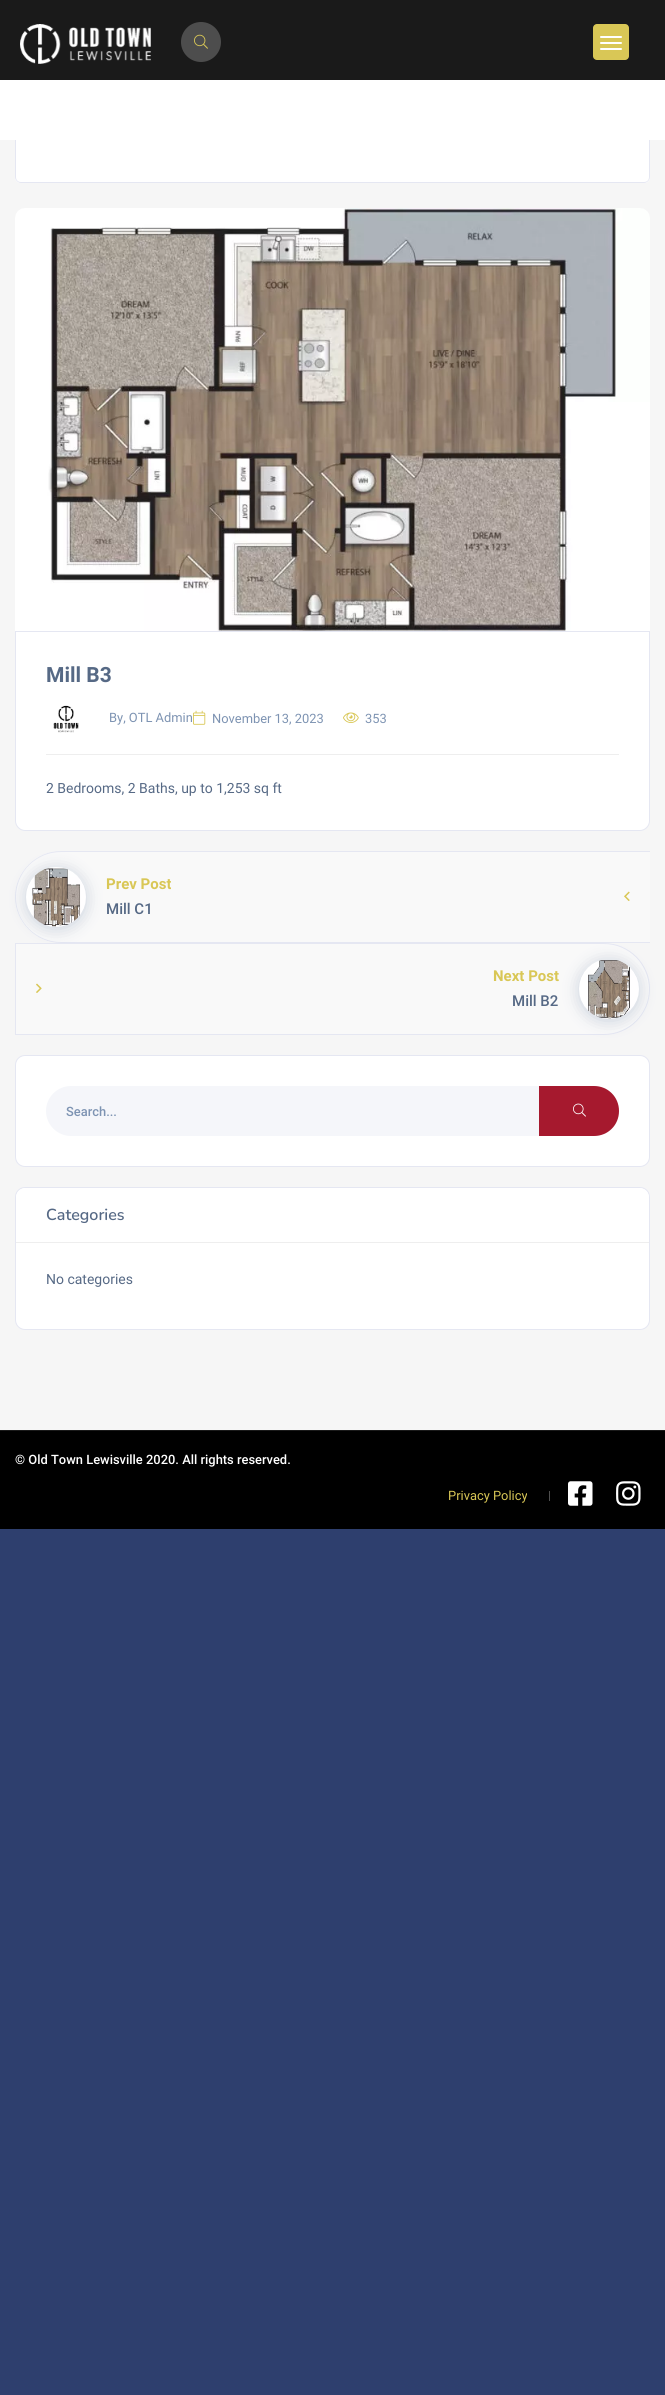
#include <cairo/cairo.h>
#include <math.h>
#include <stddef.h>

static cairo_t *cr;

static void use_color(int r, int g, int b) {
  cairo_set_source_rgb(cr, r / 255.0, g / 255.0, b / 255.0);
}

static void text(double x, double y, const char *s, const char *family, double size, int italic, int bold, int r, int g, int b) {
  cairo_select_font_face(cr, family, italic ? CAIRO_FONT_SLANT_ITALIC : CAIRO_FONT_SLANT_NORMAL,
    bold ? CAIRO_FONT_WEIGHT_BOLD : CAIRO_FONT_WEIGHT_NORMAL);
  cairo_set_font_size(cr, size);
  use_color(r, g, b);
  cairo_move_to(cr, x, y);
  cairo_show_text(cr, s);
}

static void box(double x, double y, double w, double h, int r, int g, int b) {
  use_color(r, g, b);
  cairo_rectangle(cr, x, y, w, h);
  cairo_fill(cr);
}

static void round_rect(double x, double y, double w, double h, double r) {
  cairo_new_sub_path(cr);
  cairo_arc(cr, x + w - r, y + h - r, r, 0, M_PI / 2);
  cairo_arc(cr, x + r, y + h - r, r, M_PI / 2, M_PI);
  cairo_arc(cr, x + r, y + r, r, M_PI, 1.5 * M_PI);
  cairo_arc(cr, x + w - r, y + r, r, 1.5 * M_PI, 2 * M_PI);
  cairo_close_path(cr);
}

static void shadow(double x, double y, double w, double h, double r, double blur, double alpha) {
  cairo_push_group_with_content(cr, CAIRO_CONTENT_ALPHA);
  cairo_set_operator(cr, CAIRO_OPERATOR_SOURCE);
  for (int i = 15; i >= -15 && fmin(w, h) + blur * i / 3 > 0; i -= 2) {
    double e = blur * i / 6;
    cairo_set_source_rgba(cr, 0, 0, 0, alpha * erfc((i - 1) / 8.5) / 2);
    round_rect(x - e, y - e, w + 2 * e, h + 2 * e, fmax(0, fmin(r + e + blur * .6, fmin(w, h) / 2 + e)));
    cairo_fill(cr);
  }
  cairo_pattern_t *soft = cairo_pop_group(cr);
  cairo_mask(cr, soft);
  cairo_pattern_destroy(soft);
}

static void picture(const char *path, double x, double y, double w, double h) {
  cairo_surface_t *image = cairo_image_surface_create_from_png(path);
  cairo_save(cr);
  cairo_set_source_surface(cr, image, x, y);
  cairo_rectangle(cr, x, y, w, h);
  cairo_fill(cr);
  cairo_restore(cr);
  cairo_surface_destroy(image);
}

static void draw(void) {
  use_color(46, 63, 110);
  cairo_paint(cr);
  box(0, 0, 665, 80, 26, 26, 26);
  picture("img_01.png", 20, 24, 131, 40);
  use_color(77, 77, 77);
  cairo_arc(cr, 201, 42, 20, 0, 2 * M_PI);
  cairo_fill(cr);
  picture("img_02.png", 194, 34, 14, 15);
  use_color(217, 199, 86);
  round_rect(593, 24, 36, 36, 4);
  cairo_fill(cr);
  use_color(255, 255, 255);
  round_rect(600, 36, 22, 2, 1);
  cairo_fill(cr);
  round_rect(600, 42, 22, 2, 1);
  cairo_fill(cr);
  round_rect(600, 48, 22, 2, 1);
  cairo_fill(cr);
  box(0, 80, 665, 60, 255, 255, 255);
  box(0, 140, 665, 1290, 246, 246, 246);
  use_color(255, 255, 255);
  cairo_new_path(cr);
  cairo_move_to(cr, 15, 140);
  cairo_line_to(cr, 650, 140);
  cairo_line_to(cr, 650, 177);
  cairo_curve_to(cr, 650, 180.5, 647.5, 183, 644, 183);
  cairo_line_to(cr, 21, 183);
  cairo_curve_to(cr, 17.5, 183, 15, 180.5, 15, 177);
  cairo_close_path(cr);
  cairo_fill(cr);
  use_color(229, 231, 242);
  cairo_set_fill_rule(cr, CAIRO_FILL_RULE_EVEN_ODD);
  cairo_new_path(cr);
  cairo_move_to(cr, 15, 140);
  cairo_line_to(cr, 650, 140);
  cairo_line_to(cr, 650, 177);
  cairo_curve_to(cr, 650, 180, 647, 183, 644, 183);
  cairo_line_to(cr, 21, 183);
  cairo_curve_to(cr, 18, 183, 15, 180, 15, 177);
  cairo_close_path(cr);
  cairo_move_to(cr, 16, 140);
  cairo_line_to(cr, 649, 140);
  cairo_line_to(cr, 649, 177);
  cairo_curve_to(cr, 649, 180, 647, 182, 644, 182);
  cairo_line_to(cr, 21, 182);
  cairo_curve_to(cr, 18, 182, 16, 180, 16, 177);
  cairo_close_path(cr);
  cairo_fill(cr);
  picture("img_03.png", 15, 208, 635, 423);
  use_color(255, 255, 255);
  cairo_new_path(cr);
  cairo_move_to(cr, 15.5, 631.5);
  cairo_line_to(cr, 649.5, 631.5);
  cairo_line_to(cr, 649.5, 821);
  cairo_curve_to(cr, 649.5, 826, 645, 830.5, 640, 830.5);
  cairo_line_to(cr, 25, 830.5);
  cairo_curve_to(cr, 20, 830.5, 15.5, 826, 15.5, 821);
  cairo_close_path(cr);
  cairo_fill_preserve(cr);
  use_color(229, 231, 242);
  cairo_set_line_width(cr, 1);
  cairo_stroke(cr);
  picture("img_04.png", 53, 705, 26, 28);
  picture("img_05.png", 193, 710, 13, 15);
  picture("img_06.png", 343, 712, 16, 11);
  box(46, 754, 573, 1, 238, 238, 238);
  use_color(249, 249, 249);
  cairo_new_path(cr);
  cairo_move_to(cr, 61, 851);
  cairo_line_to(cr, 650, 851);
  cairo_line_to(cr, 650, 943);
  cairo_line_to(cr, 61, 943);
  cairo_curve_to(cr, 35.5, 943, 15, 922.5, 15, 897);
  cairo_curve_to(cr, 15, 871.5, 35.5, 851, 61, 851);
  cairo_close_path(cr);
  cairo_fill(cr);
  use_color(229, 231, 242);
  cairo_new_path(cr);
  cairo_move_to(cr, 61, 851);
  cairo_line_to(cr, 650, 851);
  cairo_line_to(cr, 650, 943);
  cairo_line_to(cr, 61, 943);
  cairo_curve_to(cr, 36, 943, 15, 922, 15, 897);
  cairo_curve_to(cr, 15, 872, 36, 851, 61, 851);
  cairo_close_path(cr);
  cairo_move_to(cr, 61, 852);
  cairo_line_to(cr, 650, 852);
  cairo_line_to(cr, 650, 942);
  cairo_line_to(cr, 61, 942);
  cairo_curve_to(cr, 36, 942, 16, 922, 16, 897);
  cairo_curve_to(cr, 16, 872, 36, 852, 61, 852);
  cairo_close_path(cr);
  cairo_fill(cr);
  use_color(58, 87, 135);
  shadow(26, 869, 60, 60, 30, 8, 0.25);
  picture("img_07.png", 26, 867, 60, 60);
  picture("img_08.png", 624, 891, 6, 10);
  use_color(249, 249, 249);
  cairo_new_path(cr);
  cairo_move_to(cr, 15.5, 943.5);
  cairo_line_to(cr, 604, 943.5);
  cairo_curve_to(cr, 629, 943.5, 649.5, 964, 649.5, 989);
  cairo_curve_to(cr, 649.5, 1014, 629, 1034.5, 604, 1034.5);
  cairo_line_to(cr, 15.5, 1034.5);
  cairo_close_path(cr);
  cairo_fill_preserve(cr);
  use_color(229, 231, 242);
  cairo_stroke(cr);
  use_color(58, 87, 135);
  shadow(579, 961, 60, 60, 30, 8, 0.25);
  picture("img_09.png", 579, 960, 60, 59);
  picture("img_10.png", 36, 983, 6, 10);
  use_color(255, 255, 255);
  round_rect(15.5, 1055.5, 634, 111, 9.5);
  cairo_fill_preserve(cr);
  use_color(229, 231, 242);
  cairo_stroke(cr);
  use_color(245, 246, 250);
  round_rect(46, 1086, 573, 50, 25);
  cairo_fill(cr);
  use_color(166, 25, 46);
  cairo_new_path(cr);
  cairo_move_to(cr, 539, 1086);
  cairo_line_to(cr, 594, 1086);
  cairo_curve_to(cr, 608, 1086, 619, 1097, 619, 1111);
  cairo_curve_to(cr, 619, 1125, 608, 1136, 594, 1136);
  cairo_line_to(cr, 539, 1136);
  cairo_close_path(cr);
  cairo_fill(cr);
  picture("img_11.png", 573, 1103, 13, 14);
  use_color(255, 255, 255);
  round_rect(15.5, 1187.5, 634, 142, 9.5);
  cairo_fill_preserve(cr);
  use_color(229, 231, 242);
  cairo_stroke(cr);
  use_color(255, 255, 255);
  cairo_new_path(cr);
  cairo_move_to(cr, 26, 1188);
  cairo_line_to(cr, 639, 1188);
  cairo_curve_to(cr, 644.5, 1188, 649, 1192.5, 649, 1198);
  cairo_line_to(cr, 649, 1243);
  cairo_line_to(cr, 16, 1243);
  cairo_line_to(cr, 16, 1198);
  cairo_curve_to(cr, 16, 1192.5, 20.5, 1188, 26, 1188);
  cairo_close_path(cr);
  cairo_fill(cr);
  box(16, 1242, 633, 1, 238, 238, 238);
  box(0, 1431, 665, 98, 0, 0, 0);
  box(0, 1430, 665, 1, 26, 26, 26);
  box(549, 1491, 1, 10, 79, 79, 79);
  picture("img_12.png", 568, 1481, 25, 25);
  picture("img_13.png", 616, 1481, 25, 25);
  text(46, 682, "Mill B3", "Roboto", 21, 0, 1, 86, 105, 133);
  text(109, 722, "By, OTL Admin", "Roboto", 12.9, 0, 0, 125, 147, 178);
  text(212, 723, "November 13, 2023", "Roboto", 12.9, 0, 0, 125, 147, 178);
  text(365, 723, "353", "Roboto", 12.9, 0, 0, 125, 147, 178);
  text(46, 793, "2 Bedrooms, 2 Baths, up to 1,253 sq ft", "Roboto", 14, 0, 0, 86, 105, 133);
  text(106, 889, "Prev Post", "Roboto", 15, 0, 1, 217, 199, 86);
  text(106, 914, "Mill C1", "Roboto Medium", 15, 0, 0, 86, 105, 133);
  text(493, 981, "Next Post", "Roboto", 15, 0, 1, 217, 199, 86);
  text(512, 1006, "Mill B2", "Roboto Medium", 15, 0, 0, 86, 105, 133);
  text(66, 1116, "Search...", "Roboto Medium", 12.9, 0, 0, 125, 147, 178);
  text(46, 1220, "Categories", "Nunito SemiBold", 16, 0, 0, 86, 105, 133);
  text(46, 1284, "No categories", "Roboto", 14, 0, 0, 86, 105, 133);
  text(15, 1464, "© Old Town Lewisville 2020. All rights reserved.", "Roboto Medium", 12.9, 0, 0, 255, 255, 255);
  text(448, 1500, "Privacy Policy", "Roboto", 12.9, 0, 0, 217, 199, 86);
}

int main(void) {
  cairo_surface_t *surface = cairo_image_surface_create(CAIRO_FORMAT_RGB24, 665, 2395);
  cr = cairo_create(surface);
  cairo_font_options_t *options = cairo_font_options_create();
  cairo_font_options_set_hint_metrics(options, CAIRO_HINT_METRICS_OFF);
  cairo_font_options_set_hint_style(options, CAIRO_HINT_STYLE_NONE);
  cairo_set_font_options(cr, options);
  cairo_set_miter_limit(cr, 4);
  draw();
  cairo_surface_write_to_png(surface, "out.png");
  cairo_font_options_destroy(options);
  cairo_destroy(cr);
  cairo_surface_destroy(surface);
  return 0;
}
